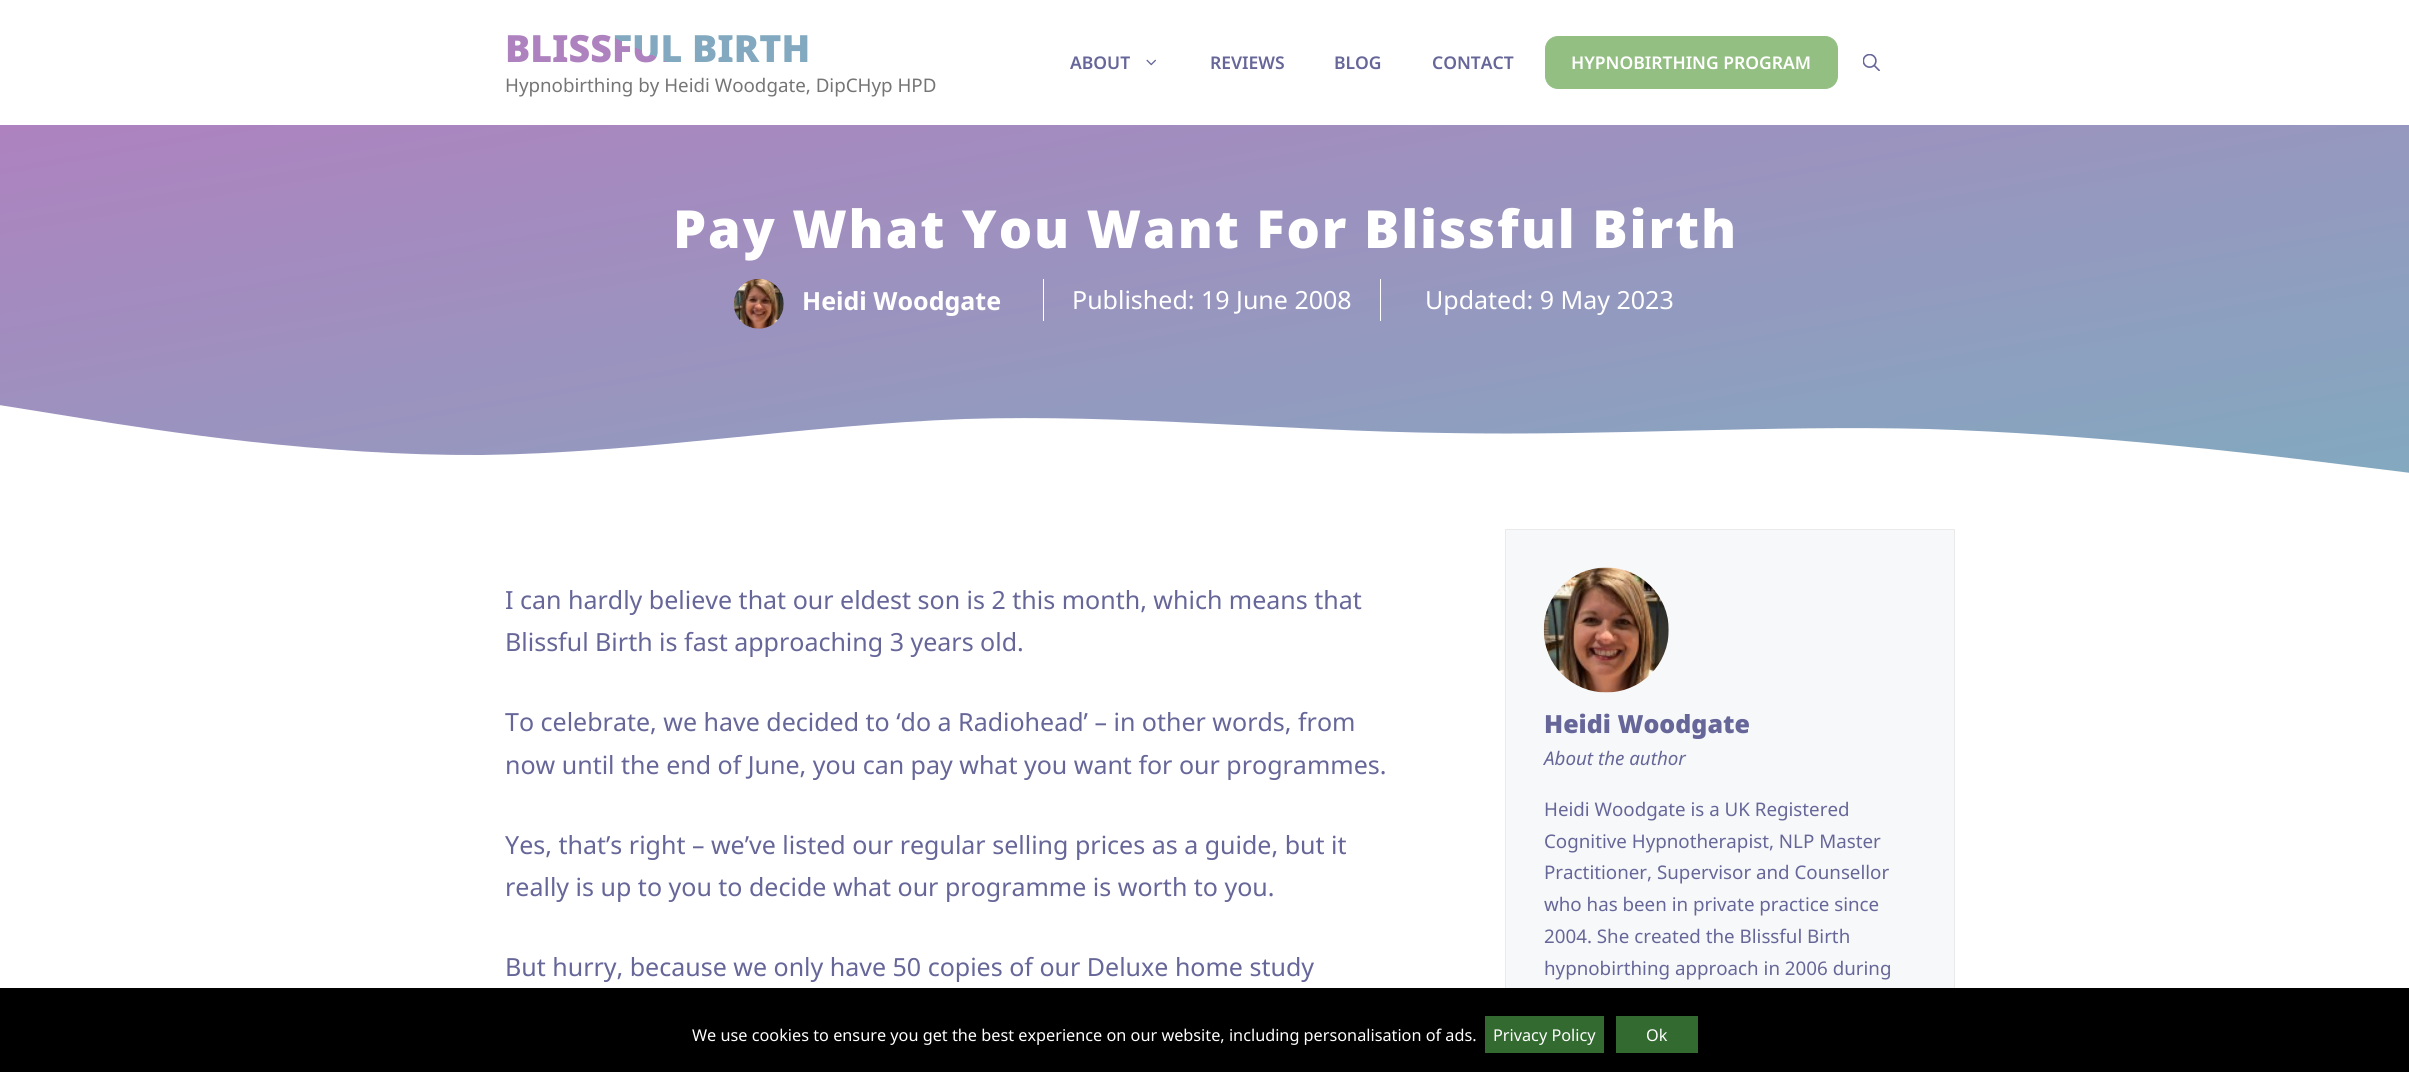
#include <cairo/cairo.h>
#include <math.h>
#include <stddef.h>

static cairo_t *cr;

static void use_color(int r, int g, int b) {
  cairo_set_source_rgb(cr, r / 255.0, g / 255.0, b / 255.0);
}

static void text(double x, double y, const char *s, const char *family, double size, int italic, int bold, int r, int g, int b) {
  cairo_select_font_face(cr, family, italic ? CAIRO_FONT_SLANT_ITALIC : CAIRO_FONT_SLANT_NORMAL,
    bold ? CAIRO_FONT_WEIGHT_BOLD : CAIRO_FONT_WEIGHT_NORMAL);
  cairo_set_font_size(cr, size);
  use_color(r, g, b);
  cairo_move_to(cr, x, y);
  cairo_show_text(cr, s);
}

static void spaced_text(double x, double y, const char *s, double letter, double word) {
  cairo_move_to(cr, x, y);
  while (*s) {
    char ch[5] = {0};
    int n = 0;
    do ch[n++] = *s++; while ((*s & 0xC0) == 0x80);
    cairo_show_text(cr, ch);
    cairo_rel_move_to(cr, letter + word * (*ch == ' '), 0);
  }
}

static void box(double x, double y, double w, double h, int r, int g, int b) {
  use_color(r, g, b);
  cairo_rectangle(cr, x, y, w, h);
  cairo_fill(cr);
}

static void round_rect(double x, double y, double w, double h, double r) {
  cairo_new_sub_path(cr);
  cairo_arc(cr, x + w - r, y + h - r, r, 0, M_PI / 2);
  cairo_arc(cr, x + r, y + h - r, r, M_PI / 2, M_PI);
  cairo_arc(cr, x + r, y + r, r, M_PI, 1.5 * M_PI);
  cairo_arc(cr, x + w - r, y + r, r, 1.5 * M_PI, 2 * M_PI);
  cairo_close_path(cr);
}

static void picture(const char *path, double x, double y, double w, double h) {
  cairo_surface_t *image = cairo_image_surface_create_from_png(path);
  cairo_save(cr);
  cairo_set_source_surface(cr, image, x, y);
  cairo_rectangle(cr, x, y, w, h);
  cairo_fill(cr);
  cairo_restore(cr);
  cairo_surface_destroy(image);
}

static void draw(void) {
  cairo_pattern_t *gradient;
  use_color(255, 255, 255);
  cairo_paint(cr);
  picture("img_01.png", 1146, 59, 10, 7);
  use_color(147, 191, 130);
  round_rect(1545.5, 36.5, 292, 52, 12.5);
  cairo_fill_preserve(cr);
  cairo_set_line_width(cr, 1);
  cairo_stroke(cr);
  picture("img_02.png", 1863, 54, 17, 17);
  gradient = cairo_pattern_create_linear(1138, -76, 1272, 679);
  cairo_pattern_add_color_stop_rgba(gradient, 0, 0.682, 0.51, 0.749, 1);
  cairo_pattern_add_color_stop_rgba(gradient, 1, 0.51, 0.663, 0.749, 1);
  cairo_set_source(cr, gradient);
  cairo_pattern_destroy(gradient);
  cairo_rectangle(cr, 0, 125, 2409, 348);
  cairo_fill(cr);
  picture("img_03.png", 733, 278, 51, 51);
  box(1043, 279, 1, 42, 255, 255, 255);
  box(1380, 279, 1, 42, 255, 255, 255);
  cairo_new_path(cr);
  cairo_move_to(cr, -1, 405);
  cairo_line_to(cr, 80, 418);
  cairo_curve_to(cr, 160, 431, 321, 456, 482, 455);
  cairo_curve_to(cr, 642, 453, 803, 425, 964, 419);
  cairo_curve_to(cr, 1125, 414, 1285, 431, 1446, 433);
  cairo_curve_to(cr, 1607, 436, 1768, 425, 1928, 429);
  cairo_curve_to(cr, 2089, 434, 2250, 453, 2330, 463);
  cairo_line_to(cr, 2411, 473);
  cairo_line_to(cr, 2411, 480);
  cairo_line_to(cr, -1, 480);
  cairo_close_path(cr);
  cairo_fill(cr);
  box(1506, 530, 448, 458, 247, 248, 249);
  cairo_rectangle(cr, 1505.5, 529.5, 449, 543);
  use_color(234, 234, 234);
  cairo_stroke(cr);
  picture("img_04.png", 1543, 567, 126, 126);
  box(0, 988, 2409, 84, 0, 0, 0);
  box(1485, 1016, 119, 37, 50, 106, 47);
  box(1616, 1016, 82, 37, 50, 106, 47);
  cairo_select_font_face(cr, "Noto Sans Black", CAIRO_FONT_SLANT_NORMAL, CAIRO_FONT_WEIGHT_NORMAL);
  cairo_set_font_size(cr, 37.5);
  gradient = cairo_pattern_create_linear(622, 125, 693, -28);
  cairo_pattern_add_color_stop_rgba(gradient, 0.45, 0.682, 0.51, 0.749, 1);
  cairo_pattern_add_color_stop_rgba(gradient, 0.45, 0.51, 0.663, 0.749, 1);
  cairo_set_source(cr, gradient);
  cairo_pattern_destroy(gradient);
  cairo_move_to(cr, 505, 62);
  cairo_show_text(cr, "BLISSFUL BIRTH");
  text(505, 92, "Hypnobirthing by Heidi Woodgate, DipCHyp HPD", "Noto Sans", 18.75, 0, 0, 117, 117, 117);
  text(1070, 69, "ABOUT", "Noto Sans SemiBold", 17.5, 0, 0, 102, 102, 153);
  text(1210, 69, "REVIEWS", "Noto Sans SemiBold", 17.5, 0, 0, 102, 102, 153);
  text(1334, 69, "BLOG", "Noto Sans SemiBold", 17.5, 0, 0, 102, 102, 153);
  text(1432, 69, "CONTACT", "Noto Sans SemiBold", 17.5, 0, 0, 102, 102, 153);
  text(1571, 69, "HYPNOBIRTHING PROGRAM", "Noto Sans SemiBold", 17.5, 0, 0, 255, 255, 255);
  cairo_select_font_face(cr, "Noto Sans Black", CAIRO_FONT_SLANT_NORMAL, CAIRO_FONT_WEIGHT_NORMAL);
  cairo_set_font_size(cr, 52.5);
  spaced_text(673, 248, "Pay What You Want For Blissful Birth", 1.9, 0);
  text(802, 310, "Heidi Woodgate", "Noto Sans", 25, 0, 1, 255, 255, 255);
  text(1072, 309, "Published: 19 June 2008", "Noto Sans", 25, 0, 0, 255, 255, 255);
  text(1425, 309, "Updated: 9 May 2023", "Noto Sans", 25, 0, 0, 255, 255, 255);
  text(505, 609, "I can hardly believe that our eldest son is 2 this month, which means that", "Noto Sans", 25, 0, 0, 102, 102, 153);
  text(505, 651, "Blissful Birth is fast approaching 3 years old.", "Noto Sans", 25, 0, 0, 102, 102, 153);
  text(505, 731, "To celebrate, we have decided to ‘do a Radiohead’ – in other words, from", "Noto Sans", 25, 0, 0, 102, 102, 153);
  text(505, 774, "now until the end of June, you can pay what you want for our programmes.", "Noto Sans", 25, 0, 0, 102, 102, 153);
  text(505, 854, "Yes, that’s right – we’ve listed our regular selling prices as a guide, but it", "Noto Sans", 25, 0, 0, 102, 102, 153);
  text(505, 896, "really is up to you to decide what our programme is worth to you.", "Noto Sans", 25, 0, 0, 102, 102, 153);
  text(505, 976, "But hurry, because we only have 50 copies of our Deluxe home study", "Noto Sans", 25, 0, 0, 102, 102, 153);
  text(1544, 733, "Heidi Woodgate", "Noto Sans Black", 25, 0, 0, 102, 102, 153);
  text(1544, 765, "About the author", "Noto Sans", 18.75, 1, 0, 102, 102, 153);
  text(1544, 816, "Heidi Woodgate is a UK Registered", "Noto Sans", 18.75, 0, 0, 102, 102, 153);
  text(1544, 848, "Cognitive Hypnotherapist, NLP Master", "Noto Sans", 18.75, 0, 0, 102, 102, 153);
  text(1544, 879, "Practitioner, Supervisor and Counsellor", "Noto Sans", 18.75, 0, 0, 102, 102, 153);
  text(1544, 911, "who has been in private practice since", "Noto Sans", 18.75, 0, 0, 102, 102, 153);
  text(1544, 943, "2004. She created the Blissful Birth", "Noto Sans", 18.75, 0, 0, 102, 102, 153);
  text(1544, 975, "hypnobirthing approach in 2006 during", "Noto Sans", 18.75, 0, 0, 102, 102, 153);
  text(692, 1041, "We use cookies to ensure you get the best experience on our website, including personalisation of ads.", "Noto Sans", 16.25, 0, 0, 255, 255, 255);
  text(1493, 1041, "Privacy Policy", "Noto Sans", 16.25, 0, 0, 255, 255, 255);
  text(1646, 1041, "Ok", "Noto Sans", 16.25, 0, 0, 255, 255, 255);
}

int main(void) {
  cairo_surface_t *surface = cairo_image_surface_create(CAIRO_FORMAT_RGB24, 2409, 1072);
  cr = cairo_create(surface);
  cairo_font_options_t *options = cairo_font_options_create();
  cairo_font_options_set_hint_metrics(options, CAIRO_HINT_METRICS_OFF);
  cairo_font_options_set_hint_style(options, CAIRO_HINT_STYLE_NONE);
  cairo_set_font_options(cr, options);
  cairo_set_miter_limit(cr, 4);
  draw();
  cairo_surface_write_to_png(surface, "out.png");
  cairo_font_options_destroy(options);
  cairo_destroy(cr);
  cairo_surface_destroy(surface);
  return 0;
}
